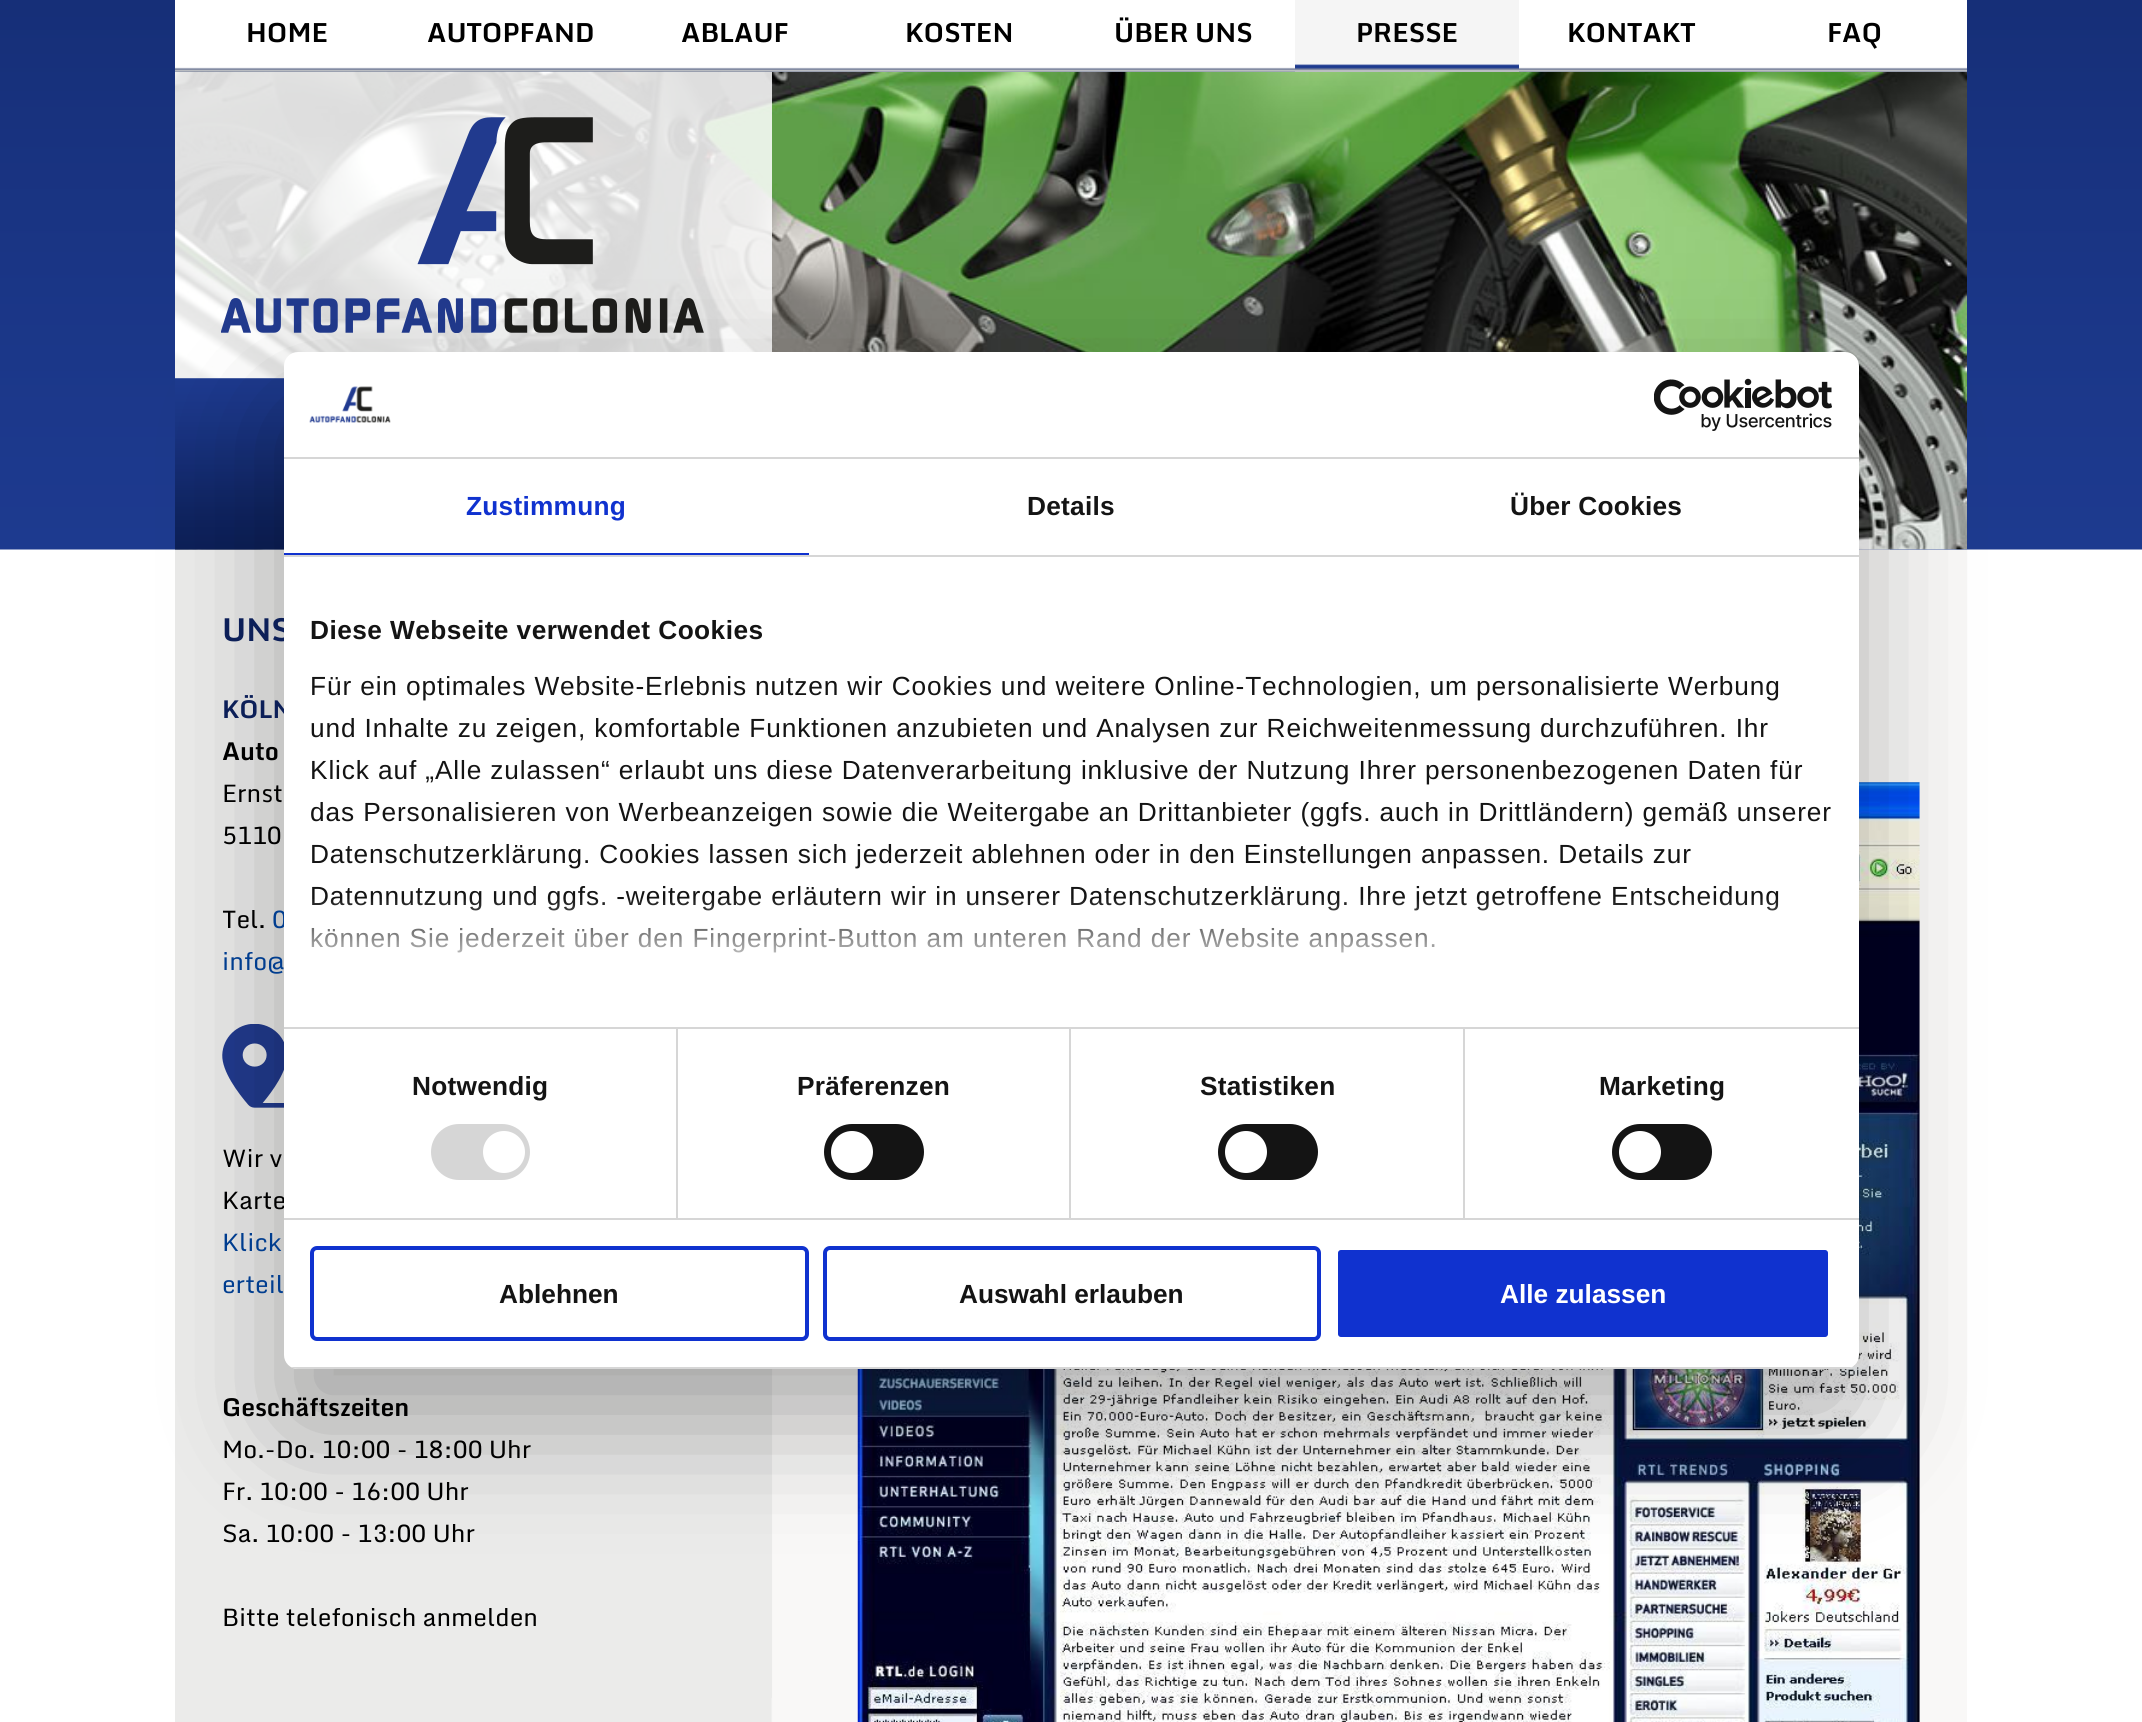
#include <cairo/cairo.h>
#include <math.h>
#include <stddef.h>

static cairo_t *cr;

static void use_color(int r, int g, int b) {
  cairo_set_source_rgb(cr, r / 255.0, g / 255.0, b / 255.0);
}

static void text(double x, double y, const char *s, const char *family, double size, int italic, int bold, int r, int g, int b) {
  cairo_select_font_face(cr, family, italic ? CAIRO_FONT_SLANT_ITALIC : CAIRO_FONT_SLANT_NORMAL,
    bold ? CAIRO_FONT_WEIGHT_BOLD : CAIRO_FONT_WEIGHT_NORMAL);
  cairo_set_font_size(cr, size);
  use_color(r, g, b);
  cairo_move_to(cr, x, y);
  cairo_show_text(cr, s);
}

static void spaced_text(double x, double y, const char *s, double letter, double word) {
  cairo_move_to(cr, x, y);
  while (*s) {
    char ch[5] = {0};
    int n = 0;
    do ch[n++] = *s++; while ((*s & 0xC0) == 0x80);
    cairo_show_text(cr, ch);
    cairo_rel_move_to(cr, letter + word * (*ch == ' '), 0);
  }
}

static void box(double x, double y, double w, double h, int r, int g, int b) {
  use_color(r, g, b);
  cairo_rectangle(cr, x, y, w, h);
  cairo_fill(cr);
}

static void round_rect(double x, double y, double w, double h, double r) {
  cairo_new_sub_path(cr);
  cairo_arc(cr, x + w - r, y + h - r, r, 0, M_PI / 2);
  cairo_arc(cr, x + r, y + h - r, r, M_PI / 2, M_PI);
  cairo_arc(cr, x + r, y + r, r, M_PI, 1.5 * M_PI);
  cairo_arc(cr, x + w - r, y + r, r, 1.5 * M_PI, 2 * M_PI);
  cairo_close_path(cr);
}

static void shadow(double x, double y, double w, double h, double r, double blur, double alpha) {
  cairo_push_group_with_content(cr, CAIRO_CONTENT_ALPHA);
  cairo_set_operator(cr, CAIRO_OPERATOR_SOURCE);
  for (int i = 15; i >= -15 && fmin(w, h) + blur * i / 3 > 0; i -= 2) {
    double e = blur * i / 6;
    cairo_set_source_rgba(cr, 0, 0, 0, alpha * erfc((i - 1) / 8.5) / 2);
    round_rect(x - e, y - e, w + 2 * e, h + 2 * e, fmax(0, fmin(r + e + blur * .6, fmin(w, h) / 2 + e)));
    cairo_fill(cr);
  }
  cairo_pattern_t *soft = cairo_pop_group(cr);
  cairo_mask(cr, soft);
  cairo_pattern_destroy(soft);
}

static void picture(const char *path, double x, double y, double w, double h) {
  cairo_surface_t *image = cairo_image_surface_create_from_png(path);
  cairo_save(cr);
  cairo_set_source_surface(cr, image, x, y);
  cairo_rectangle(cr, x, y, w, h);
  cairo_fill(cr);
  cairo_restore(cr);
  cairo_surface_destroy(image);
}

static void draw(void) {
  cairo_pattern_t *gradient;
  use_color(255, 255, 255);
  cairo_paint(cr);
  picture("img_01.png", 0, 0, 2142, 550);
  picture("img_02.png", 175, 0, 1792, 72);
  picture("img_07.png", 175, 549, 1715, 1173);
  picture("img_04.png", 175, 71, 1792, 479);
  picture("img_03.png", 1295, 0, 224, 72);
  cairo_set_source_rgba(cr, 1, 1, 1, 0.85);
  cairo_rectangle(cr, 175, 72, 597, 306);
  cairo_fill(cr);
  picture("img_05.png", 221, 117, 483, 216);
  picture("img_06.png", 175, 378, 109, 172);
  box(1890, 550, 77, 1172, 249, 248, 247);
  box(771, 550, 1, 1148, 235, 235, 234);
  picture("img_08.png", 222, 1024, 62, 84);
  picture("img_09.png", 857, 782, 1063, 940);
  use_color(0, 0, 0);
  shadow(284, 408, 1575, 1017, 14, 59.5, 0.3);
  text(246, 42, "HOME", "Monda", 26.25, 0, 1, 0, 0, 0);
  text(427, 42, "AUTOPFAND", "Monda", 26.25, 0, 1, 0, 0, 0);
  text(681, 42, "ABLAUF", "Monda", 26.25, 0, 1, 0, 0, 0);
  text(905, 42, "KOSTEN", "Monda", 26.25, 0, 1, 0, 0, 0);
  text(1114, 42, "ÜBER UNS", "Monda", 26.25, 0, 1, 0, 0, 0);
  text(1356, 42, "PRESSE", "Monda", 26.25, 0, 1, 0, 0, 0);
  text(1567, 42, "KONTAKT", "Monda", 26.25, 0, 1, 0, 0, 0);
  text(1827, 42, "FAQ", "Monda", 26.25, 0, 1, 0, 0, 0);
  text(222, 641, "UNS", "Monda", 31.5, 0, 1, 12, 31, 88);
  text(222, 718, "KÖLN", "Monda", 24.5, 0, 1, 12, 31, 88);
  text(222, 760, "Auto", "Monda", 24.5, 0, 1, 0, 0, 0);
  text(222, 802, "Ernst", "Monda", 24.5, 0, 0, 0, 0, 0);
  text(222, 844, "5110", "Monda", 24.5, 0, 0, 0, 0, 0);
  text(222, 928, "Tel.", "Monda", 24.5, 0, 0, 0, 0, 0);
  text(272, 928, "0", "Monda", 24.5, 0, 0, 0, 61, 143);
  text(222, 970, "info@", "Monda", 24.5, 0, 0, 0, 61, 143);
  text(222, 1167, "Wir v", "Monda", 24.5, 0, 0, 0, 0, 0);
  text(222, 1209, "Karte", "Monda", 24.5, 0, 0, 0, 0, 0);
  text(222, 1251, "Klick", "Monda", 24.5, 0, 0, 0, 61, 143);
  text(222, 1293, "erteil", "Monda", 24.5, 0, 0, 0, 61, 143);
  text(222, 1416, "Geschäftszeiten", "Monda", 24.5, 0, 1, 0, 0, 0);
  text(222, 1458, "Mo.-Do. 10:00 - 18:00 Uhr", "Monda", 24.5, 0, 0, 0, 0, 0);
  text(222, 1500, "Fr. 10:00 - 16:00 Uhr", "Monda", 24.5, 0, 0, 0, 0, 0);
  text(222, 1542, "Sa. 10:00 - 13:00 Uhr", "Monda", 24.5, 0, 0, 0, 0, 0);
  text(222, 1626, "Bitte telefonisch anmelden", "Monda", 24.5, 0, 0, 0, 0, 0);
  use_color(255, 255, 255);
  round_rect(284, 352, 1575, 1017, 14);
  cairo_fill(cr);
  box(284, 457, 1575, 2, 214, 214, 214);
  picture("img_10.png", 309, 386, 82, 37);
  picture("img_11.png", 1654, 378, 178, 53);
  box(284, 555, 1575, 2, 214, 214, 214);
  box(284, 553, 525, 2, 16, 50, 207);
  cairo_select_font_face(cr, "Liberation Sans", CAIRO_FONT_SLANT_NORMAL, CAIRO_FONT_WEIGHT_BOLD);
  cairo_set_font_size(cr, 26.25);
  spaced_text(466, 515, "Zustimmung", 0.25, 0);
  use_color(20, 20, 20);
  spaced_text(1027, 515, "Details", 0.25, 0);
  spaced_text(1510, 515, "Über Cookies", 0.25, 0);
  box(284, 1027, 1575, 2, 214, 214, 214);
  use_color(20, 20, 20);
  spaced_text(310, 639, "Diese Webseite verwendet Cookies", 0.45, 0);
  cairo_select_font_face(cr, "Liberation Sans", CAIRO_FONT_SLANT_NORMAL, CAIRO_FONT_WEIGHT_NORMAL);
  spaced_text(310, 695, "Für ein optimales Website-Erlebnis nutzen wir Cookies und weitere Online-Technologien, um personalisierte Werbung", 0.88, 0);
  spaced_text(310, 737, "und Inhalte zu zeigen, komfortable Funktionen anzubieten und Analysen zur Reichweitenmessung durchzuführen. Ihr", 0.88, 0);
  spaced_text(310, 779, "Klick auf „Alle zulassen“ erlaubt uns diese Datenverarbeitung inklusive der Nutzung Ihrer personenbezogenen Daten für", 0.88, 0);
  spaced_text(310, 821, "das Personalisieren von Werbeanzeigen sowie die Weitergabe an Drittanbieter (ggfs. auch in Drittländern) gemäß unserer", 0.88, 0);
  spaced_text(310, 863, "Datenschutzerklärung. Cookies lassen sich jederzeit ablehnen oder in den Einstellungen anpassen. Details zur", 0.88, 0);
  spaced_text(310, 905, "Datennutzung und ggfs. -weitergabe erläutern wir in unserer Datenschutzerklärung. Ihre jetzt getroffene Entscheidung", 0.88, 0);
  spaced_text(310, 947, "können Sie jederzeit über den Fingerprint-Button am unteren Rand der Website anpassen.", 0.88, 0);
  gradient = cairo_pattern_create_linear(1060, 1028, 1060, 897);
  cairo_pattern_add_color_stop_rgba(gradient, 0, 1, 1, 1, 1);
  cairo_pattern_add_color_stop_rgba(gradient, 0.5, 1, 1, 1, 0.8);
  cairo_pattern_add_color_stop_rgba(gradient, 1, 1, 1, 1, 0);
  cairo_set_source(cr, gradient);
  cairo_pattern_destroy(gradient);
  cairo_rectangle(cr, 311, 899, 1467, 54);
  cairo_fill(cr);
  box(284, 1218, 1575, 2, 214, 214, 214);
  box(676, 1029, 2, 189, 214, 214, 214);
  cairo_select_font_face(cr, "Liberation Sans", CAIRO_FONT_SLANT_NORMAL, CAIRO_FONT_WEIGHT_BOLD);
  use_color(20, 20, 20);
  spaced_text(412, 1095, "Notwendig", 0.25, 0);
  use_color(214, 214, 214);
  round_rect(431, 1124, 99, 56, 28);
  cairo_fill(cr);
  use_color(255, 255, 255);
  cairo_arc(cr, 504, 1152, 21, 0, 2 * M_PI);
  cairo_fill(cr);
  box(1069, 1029, 2, 189, 214, 214, 214);
  use_color(20, 20, 20);
  spaced_text(797, 1095, "Präferenzen", 0.25, 0);
  round_rect(824, 1124, 100, 56, 28);
  cairo_fill(cr);
  use_color(255, 255, 255);
  cairo_arc(cr, 852, 1152, 21, 0, 2 * M_PI);
  cairo_fill(cr);
  box(1463, 1029, 2, 189, 214, 214, 214);
  use_color(20, 20, 20);
  spaced_text(1200, 1095, "Statistiken", 0.25, 0);
  round_rect(1218, 1124, 100, 56, 28);
  cairo_fill(cr);
  use_color(255, 255, 255);
  cairo_arc(cr, 1246, 1152, 21, 0, 2 * M_PI);
  cairo_fill(cr);
  use_color(20, 20, 20);
  spaced_text(1599, 1095, "Marketing", 0.25, 0);
  round_rect(1612, 1124, 100, 56, 28);
  cairo_fill(cr);
  use_color(255, 255, 255);
  cairo_arc(cr, 1640, 1152, 21, 0, 2 * M_PI);
  cairo_fill(cr);
  cairo_save(cr);
  round_rect(284, 352, 1575, 1017, 14);
  cairo_clip(cr);
  box(284, 1367, 1575, 2, 214, 214, 214);
  cairo_restore(cr);
  round_rect(312, 1248, 495, 91, 5);
  use_color(16, 50, 207);
  cairo_set_line_width(cr, 4);
  cairo_stroke(cr);
  text(499, 1303, "Ablehnen", "Liberation Sans", 26.25, 0, 1, 20, 20, 20);
  round_rect(825, 1248, 494, 91, 5);
  use_color(16, 50, 207);
  cairo_stroke(cr);
  text(959, 1303, "Auswahl erlauben", "Liberation Sans", 26.25, 0, 1, 20, 20, 20);
  use_color(16, 50, 207);
  round_rect(1336, 1248, 494, 91, 5);
  cairo_fill_preserve(cr);
  use_color(255, 255, 255);
  cairo_stroke(cr);
  text(1500, 1303, "Alle zulassen", "Liberation Sans", 26.25, 0, 1, 255, 255, 255);
}

int main(void) {
  cairo_surface_t *surface = cairo_image_surface_create(CAIRO_FORMAT_RGB24, 2142, 1722);
  cr = cairo_create(surface);
  cairo_font_options_t *options = cairo_font_options_create();
  cairo_font_options_set_hint_metrics(options, CAIRO_HINT_METRICS_OFF);
  cairo_font_options_set_hint_style(options, CAIRO_HINT_STYLE_NONE);
  cairo_set_font_options(cr, options);
  cairo_set_miter_limit(cr, 4);
  draw();
  cairo_surface_write_to_png(surface, "out.png");
  cairo_font_options_destroy(options);
  cairo_destroy(cr);
  cairo_surface_destroy(surface);
  return 0;
}
